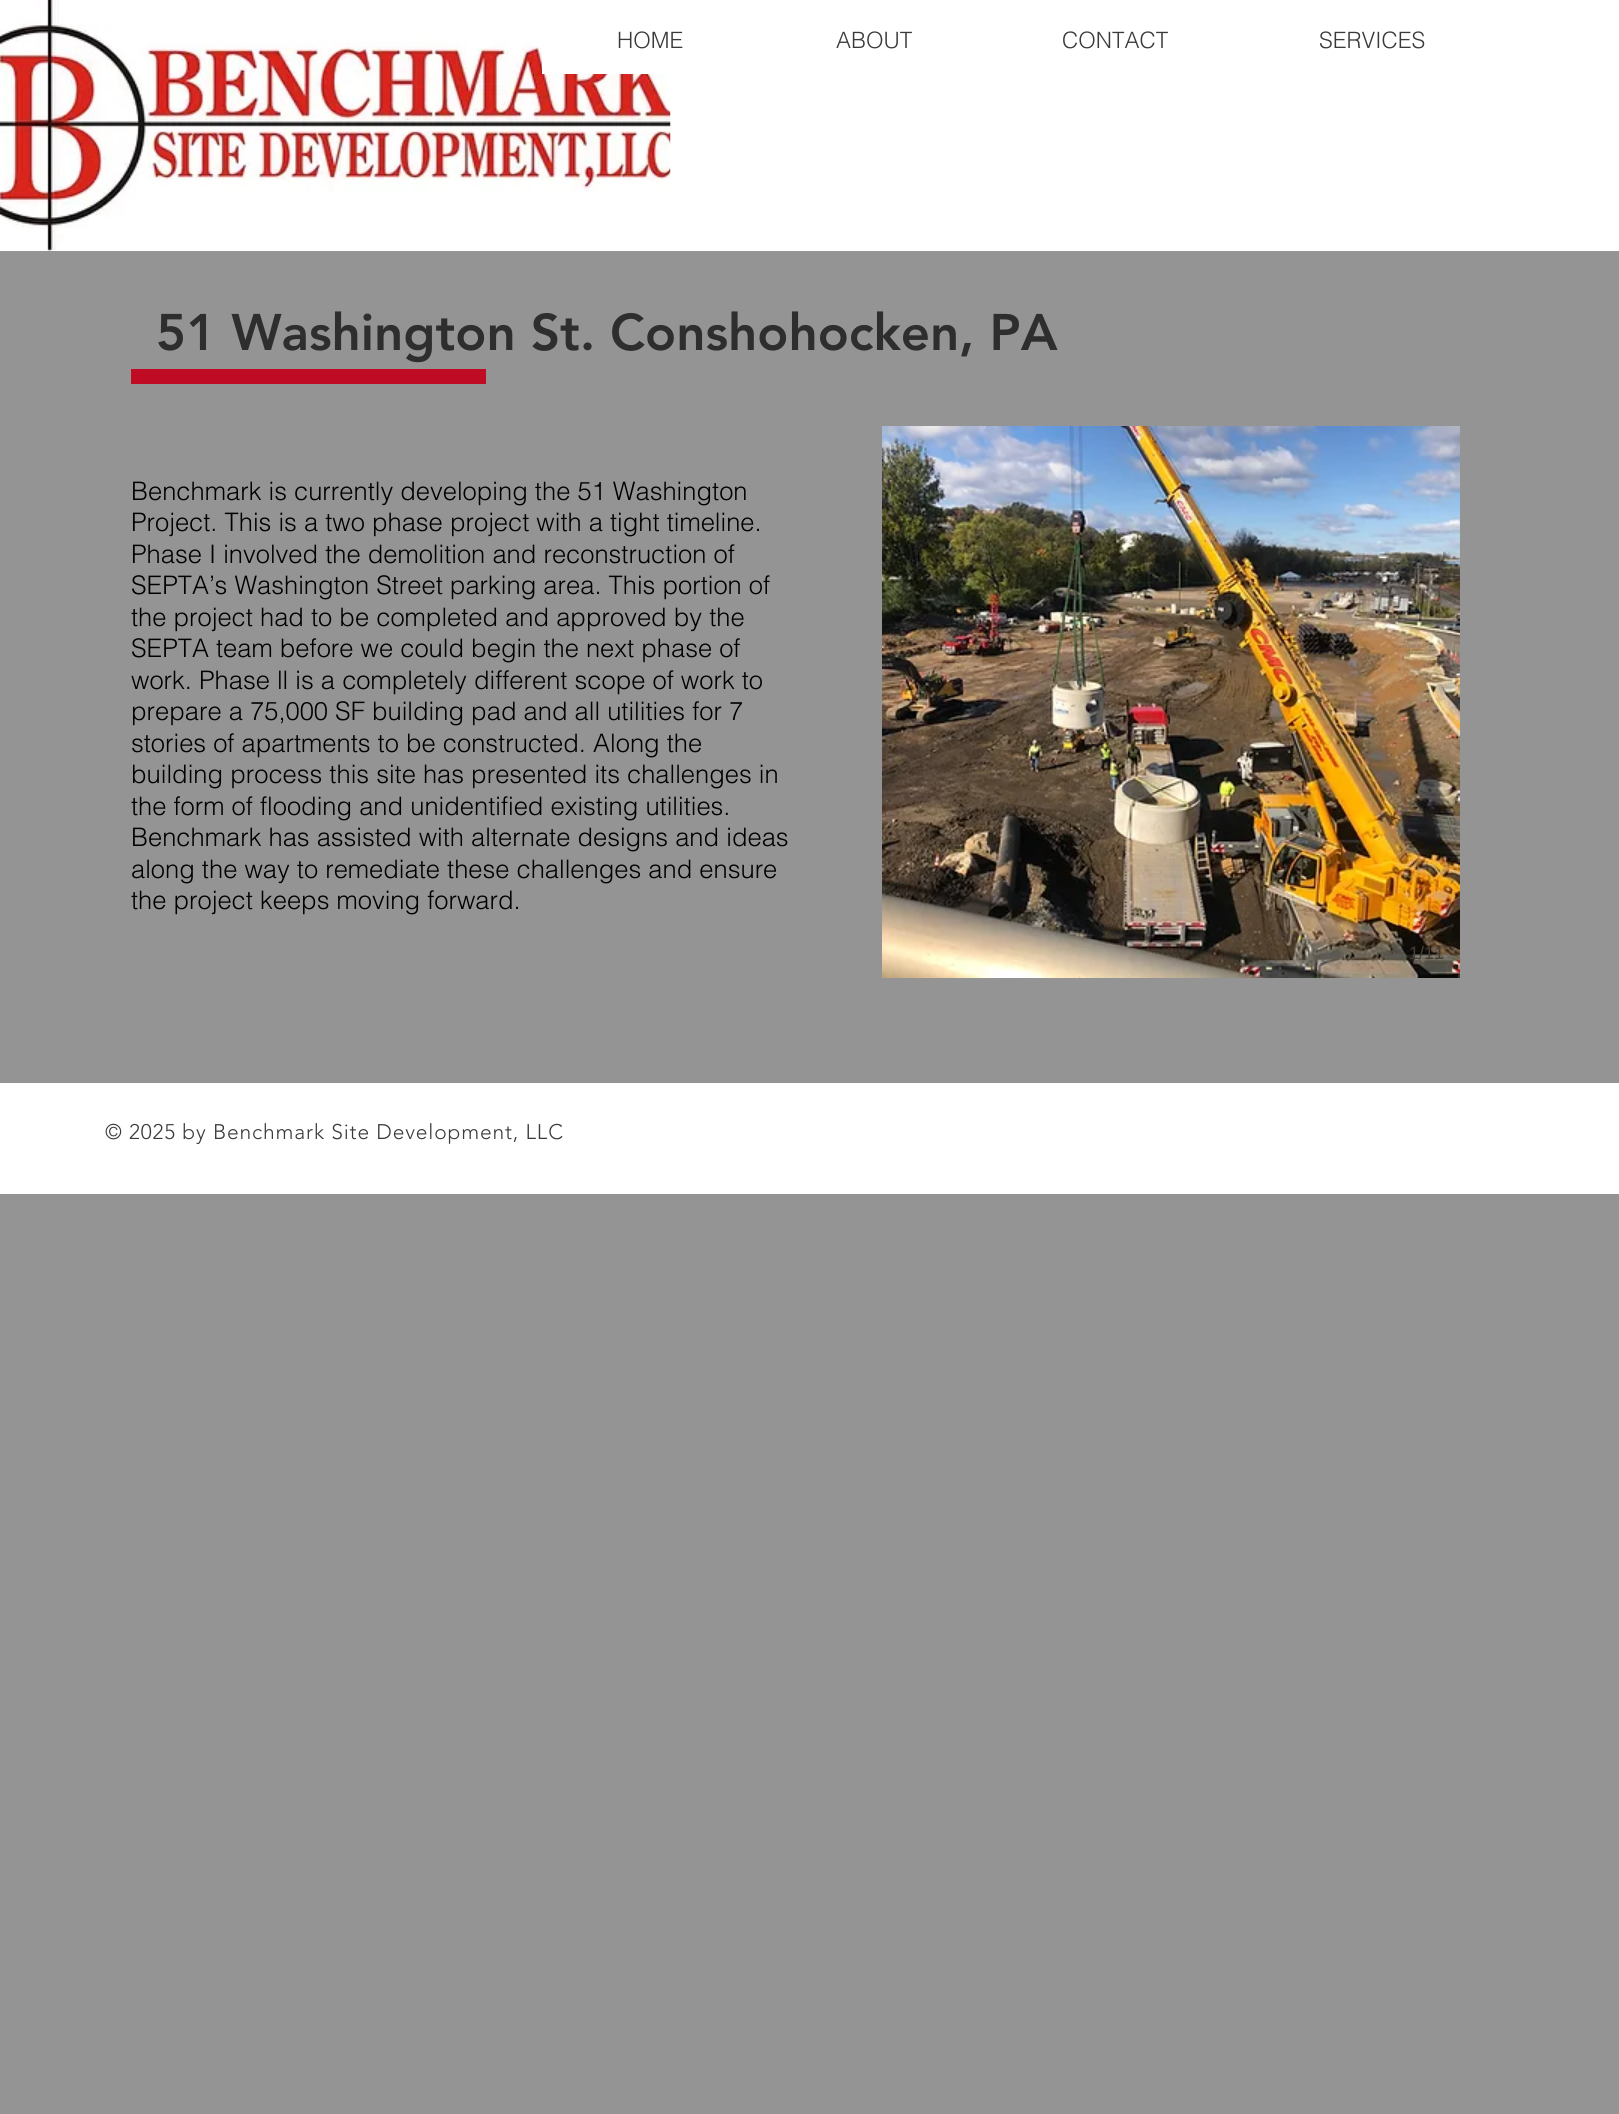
#include <cairo/cairo.h>
#include <math.h>
#include <stddef.h>

static cairo_t *cr;

static void use_color(int r, int g, int b) {
  cairo_set_source_rgb(cr, r / 255.0, g / 255.0, b / 255.0);
}

static void text(double x, double y, const char *s, const char *family, double size, int italic, int bold, int r, int g, int b) {
  cairo_select_font_face(cr, family, italic ? CAIRO_FONT_SLANT_ITALIC : CAIRO_FONT_SLANT_NORMAL,
    bold ? CAIRO_FONT_WEIGHT_BOLD : CAIRO_FONT_WEIGHT_NORMAL);
  cairo_set_font_size(cr, size);
  use_color(r, g, b);
  cairo_move_to(cr, x, y);
  cairo_show_text(cr, s);
}

static void spaced_text(double x, double y, const char *s, double letter, double word) {
  cairo_move_to(cr, x, y);
  while (*s) {
    char ch[5] = {0};
    int n = 0;
    do ch[n++] = *s++; while ((*s & 0xC0) == 0x80);
    cairo_show_text(cr, ch);
    cairo_rel_move_to(cr, letter + word * (*ch == ' '), 0);
  }
}

static void box(double x, double y, double w, double h, int r, int g, int b) {
  use_color(r, g, b);
  cairo_rectangle(cr, x, y, w, h);
  cairo_fill(cr);
}

static void picture(const char *path, double x, double y, double w, double h) {
  cairo_surface_t *image = cairo_image_surface_create_from_png(path);
  cairo_save(cr);
  cairo_set_source_surface(cr, image, x, y);
  cairo_rectangle(cr, x, y, w, h);
  cairo_fill(cr);
  cairo_restore(cr);
  cairo_surface_destroy(image);
}

static void draw(void) {
  use_color(148, 148, 148);
  cairo_paint(cr);
  box(0, 0, 1619, 251, 255, 255, 255);
  picture("img_01.png", 0, 0, 671, 251);
  box(542, 38, 129, 36, 255, 255, 255);
  box(131, 369, 355, 15, 191, 11, 36);
  picture("img_02.png", 882, 426, 578, 552);
  box(0, 1083, 1619, 111, 255, 255, 255);
  text(617, 48, "HOME", "helvetica Light", 22.5, 0, 0, 59, 58, 58);
  text(836, 48, "ABOUT", "helvetica Light", 22.5, 0, 0, 59, 58, 58);
  text(1062, 48, "CONTACT", "helvetica Light", 22.5, 0, 0, 59, 58, 58);
  text(1319, 48, "SERVICES", "helvetica Light", 22.5, 0, 0, 59, 58, 58);
  text(156, 350, "51 Washington St. Conshohocken, PA", "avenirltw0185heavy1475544 Black", 51, 0, 0, 47, 46, 46);
  text(131, 500, "Benchmark is currently developing the 51 Washington", "helvetica Light", 25.5, 0, 0, 0, 0, 0);
  text(131, 531, "Project. This is a two phase project with a tight timeline.", "helvetica Light", 25.5, 0, 0, 0, 0, 0);
  text(131, 563, "Phase I involved the demolition and reconstruction of", "helvetica Light", 25.5, 0, 0, 0, 0, 0);
  text(131, 594, "SEPTA’s Washington Street parking area. This portion of", "helvetica Light", 25.5, 0, 0, 0, 0, 0);
  text(131, 626, "the project had to be completed and approved by the", "helvetica Light", 25.5, 0, 0, 0, 0, 0);
  text(131, 657, "SEPTA team before we could begin the next phase of", "helvetica Light", 25.5, 0, 0, 0, 0, 0);
  text(131, 689, "work. Phase ll is a completely different scope of work to", "helvetica Light", 25.5, 0, 0, 0, 0, 0);
  text(131, 720, "prepare a 75,000 SF building pad and all utilities for 7", "helvetica Light", 25.5, 0, 0, 0, 0, 0);
  text(131, 752, "stories of apartments to be constructed. Along the", "helvetica Light", 25.5, 0, 0, 0, 0, 0);
  text(131, 783, "building process this site has presented its challenges in", "helvetica Light", 25.5, 0, 0, 0, 0, 0);
  text(131, 815, "the form of flooding and unidentified existing utilities.", "helvetica Light", 25.5, 0, 0, 0, 0, 0);
  text(131, 846, "Benchmark has assisted with alternate designs and ideas", "helvetica Light", 25.5, 0, 0, 0, 0, 0);
  text(131, 878, "along the way to remediate these challenges and ensure", "helvetica Light", 25.5, 0, 0, 0, 0, 0);
  text(131, 909, "the project keeps moving forward.", "helvetica Light", 25.5, 0, 0, 0, 0, 0);
  text(1409, 959, "1/11", "Liberation Sans", 18, 0, 0, 68, 61, 52);
  cairo_select_font_face(cr, "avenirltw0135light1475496 Light", CAIRO_FONT_SLANT_NORMAL, CAIRO_FONT_WEIGHT_NORMAL);
  cairo_set_font_size(cr, 21);
  use_color(59, 58, 58);
  spaced_text(105, 1139, "© 2025 by Benchmark Site Development, LLC", 0.85, 0);
}

int main(void) {
  cairo_surface_t *surface = cairo_image_surface_create(CAIRO_FORMAT_RGB24, 1619, 2114);
  cr = cairo_create(surface);
  cairo_font_options_t *options = cairo_font_options_create();
  cairo_font_options_set_hint_metrics(options, CAIRO_HINT_METRICS_OFF);
  cairo_font_options_set_hint_style(options, CAIRO_HINT_STYLE_NONE);
  cairo_set_font_options(cr, options);
  cairo_set_miter_limit(cr, 4);
  draw();
  cairo_surface_write_to_png(surface, "out.png");
  cairo_font_options_destroy(options);
  cairo_destroy(cr);
  cairo_surface_destroy(surface);
  return 0;
}
